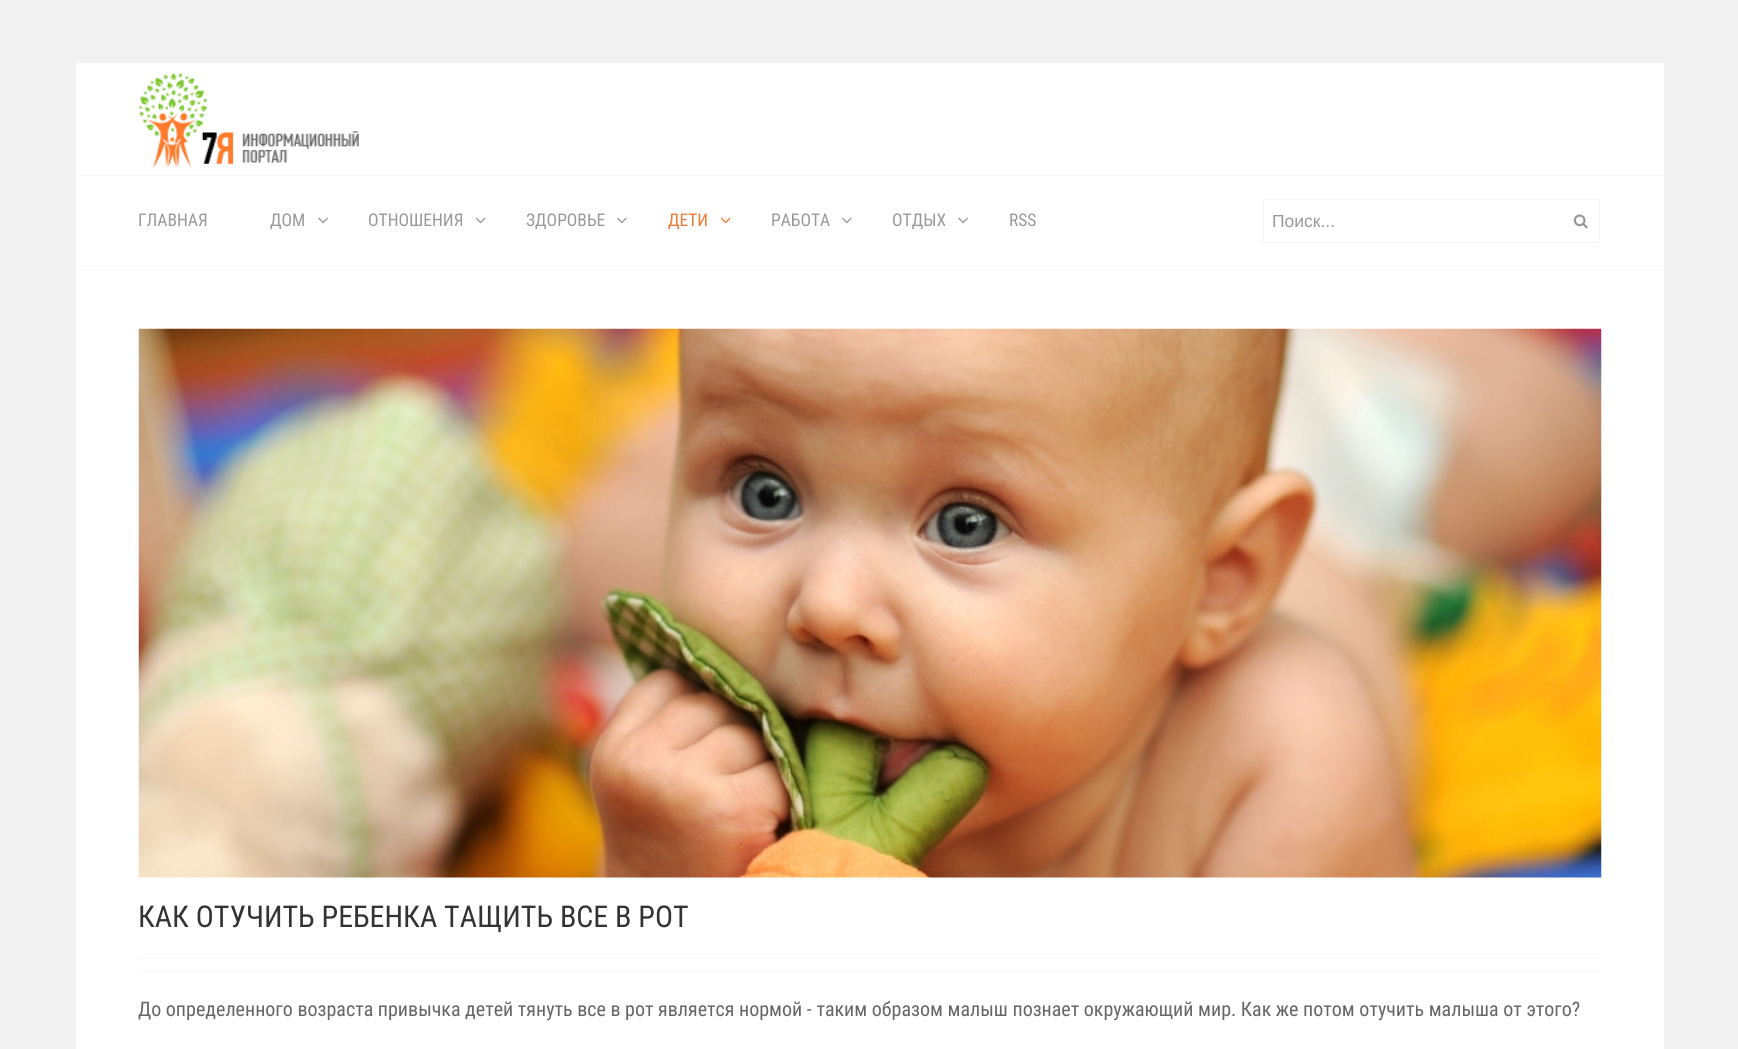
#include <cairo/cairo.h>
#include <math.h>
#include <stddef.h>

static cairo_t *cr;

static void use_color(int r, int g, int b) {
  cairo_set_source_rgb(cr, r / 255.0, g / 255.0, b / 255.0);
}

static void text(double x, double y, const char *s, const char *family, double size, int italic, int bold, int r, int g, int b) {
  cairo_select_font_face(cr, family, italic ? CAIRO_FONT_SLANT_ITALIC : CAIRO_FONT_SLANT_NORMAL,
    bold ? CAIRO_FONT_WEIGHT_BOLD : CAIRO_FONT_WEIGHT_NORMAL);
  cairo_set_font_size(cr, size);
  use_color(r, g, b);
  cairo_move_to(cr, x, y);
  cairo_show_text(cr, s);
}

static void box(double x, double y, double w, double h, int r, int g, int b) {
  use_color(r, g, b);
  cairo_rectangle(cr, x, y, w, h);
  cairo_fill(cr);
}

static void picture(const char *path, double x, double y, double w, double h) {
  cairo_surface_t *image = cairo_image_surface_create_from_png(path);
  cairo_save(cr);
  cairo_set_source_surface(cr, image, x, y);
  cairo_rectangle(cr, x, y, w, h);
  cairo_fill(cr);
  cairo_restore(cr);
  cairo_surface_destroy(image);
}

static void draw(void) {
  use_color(242, 242, 242);
  cairo_paint(cr);
  box(76, 63, 1588, 986, 255, 255, 255);
  box(76, 175, 1588, 1, 245, 245, 245);
  picture("img_01.png", 138, 72, 221, 96);
  box(76, 265, 1588, 1, 245, 245, 245);
  picture("img_02.png", 318, 217, 10, 7);
  picture("img_03.png", 475, 217, 11, 7);
  picture("img_04.png", 617, 217, 10, 7);
  picture("img_05.png", 720, 217, 11, 7);
  picture("img_04.png", 842, 217, 10, 7);
  picture("img_02.png", 958, 217, 10, 7);
  cairo_rectangle(cr, 1263.5, 199.5, 336, 43);
  cairo_set_line_width(cr, 1);
  cairo_stroke(cr);
  picture("img_06.png", 1573, 214, 15, 15);
  picture("img_07.png", 138, 328, 1464, 550);
  box(139, 958, 1462, 1, 245, 245, 245);
  box(139, 971, 1462, 1, 245, 245, 245);
  text(138, 226, "ГЛАВНАЯ", "Roboto Condensed", 17.5, 0, 0, 153, 153, 153);
  text(270, 226, "ДОМ", "Roboto Condensed", 17.5, 0, 0, 153, 153, 153);
  text(368, 226, "ОТНОШЕНИЯ", "Roboto Condensed", 17.5, 0, 0, 153, 153, 153);
  text(526, 226, "ЗДОРОВЬЕ", "Roboto Condensed", 17.5, 0, 0, 153, 153, 153);
  text(668, 226, "ДЕТИ", "Roboto Condensed", 17.5, 0, 0, 242, 121, 53);
  text(771, 226, "РАБОТА", "Roboto Condensed", 17.5, 0, 0, 153, 153, 153);
  text(892, 226, "ОТДЫХ", "Roboto Condensed", 17.5, 0, 0, 153, 153, 153);
  text(1009, 226, "RSS", "Roboto Condensed", 17.5, 0, 0, 153, 153, 153);
  text(1272, 227, "Поиск...", "Liberation Sans", 17.5, 0, 0, 153, 153, 153);
  text(138, 927, "КАК ОТУЧИТЬ РЕБЕНКА ТАЩИТЬ ВСЕ В РОТ", "Roboto Condensed", 30, 0, 0, 51, 51, 51);
  text(138, 1016, "До определенного возраста привычка детей тянуть все в рот является нормой - таким образом малыш познает окружающий мир. Как же потом отучить малыша от этого?", "Roboto Condensed", 20, 0, 0, 102, 102, 102);
}

int main(void) {
  cairo_surface_t *surface = cairo_image_surface_create(CAIRO_FORMAT_RGB24, 1738, 1049);
  cr = cairo_create(surface);
  cairo_font_options_t *options = cairo_font_options_create();
  cairo_font_options_set_hint_metrics(options, CAIRO_HINT_METRICS_OFF);
  cairo_font_options_set_hint_style(options, CAIRO_HINT_STYLE_NONE);
  cairo_set_font_options(cr, options);
  cairo_set_miter_limit(cr, 4);
  draw();
  cairo_surface_write_to_png(surface, "out.png");
  cairo_font_options_destroy(options);
  cairo_destroy(cr);
  cairo_surface_destroy(surface);
  return 0;
}
